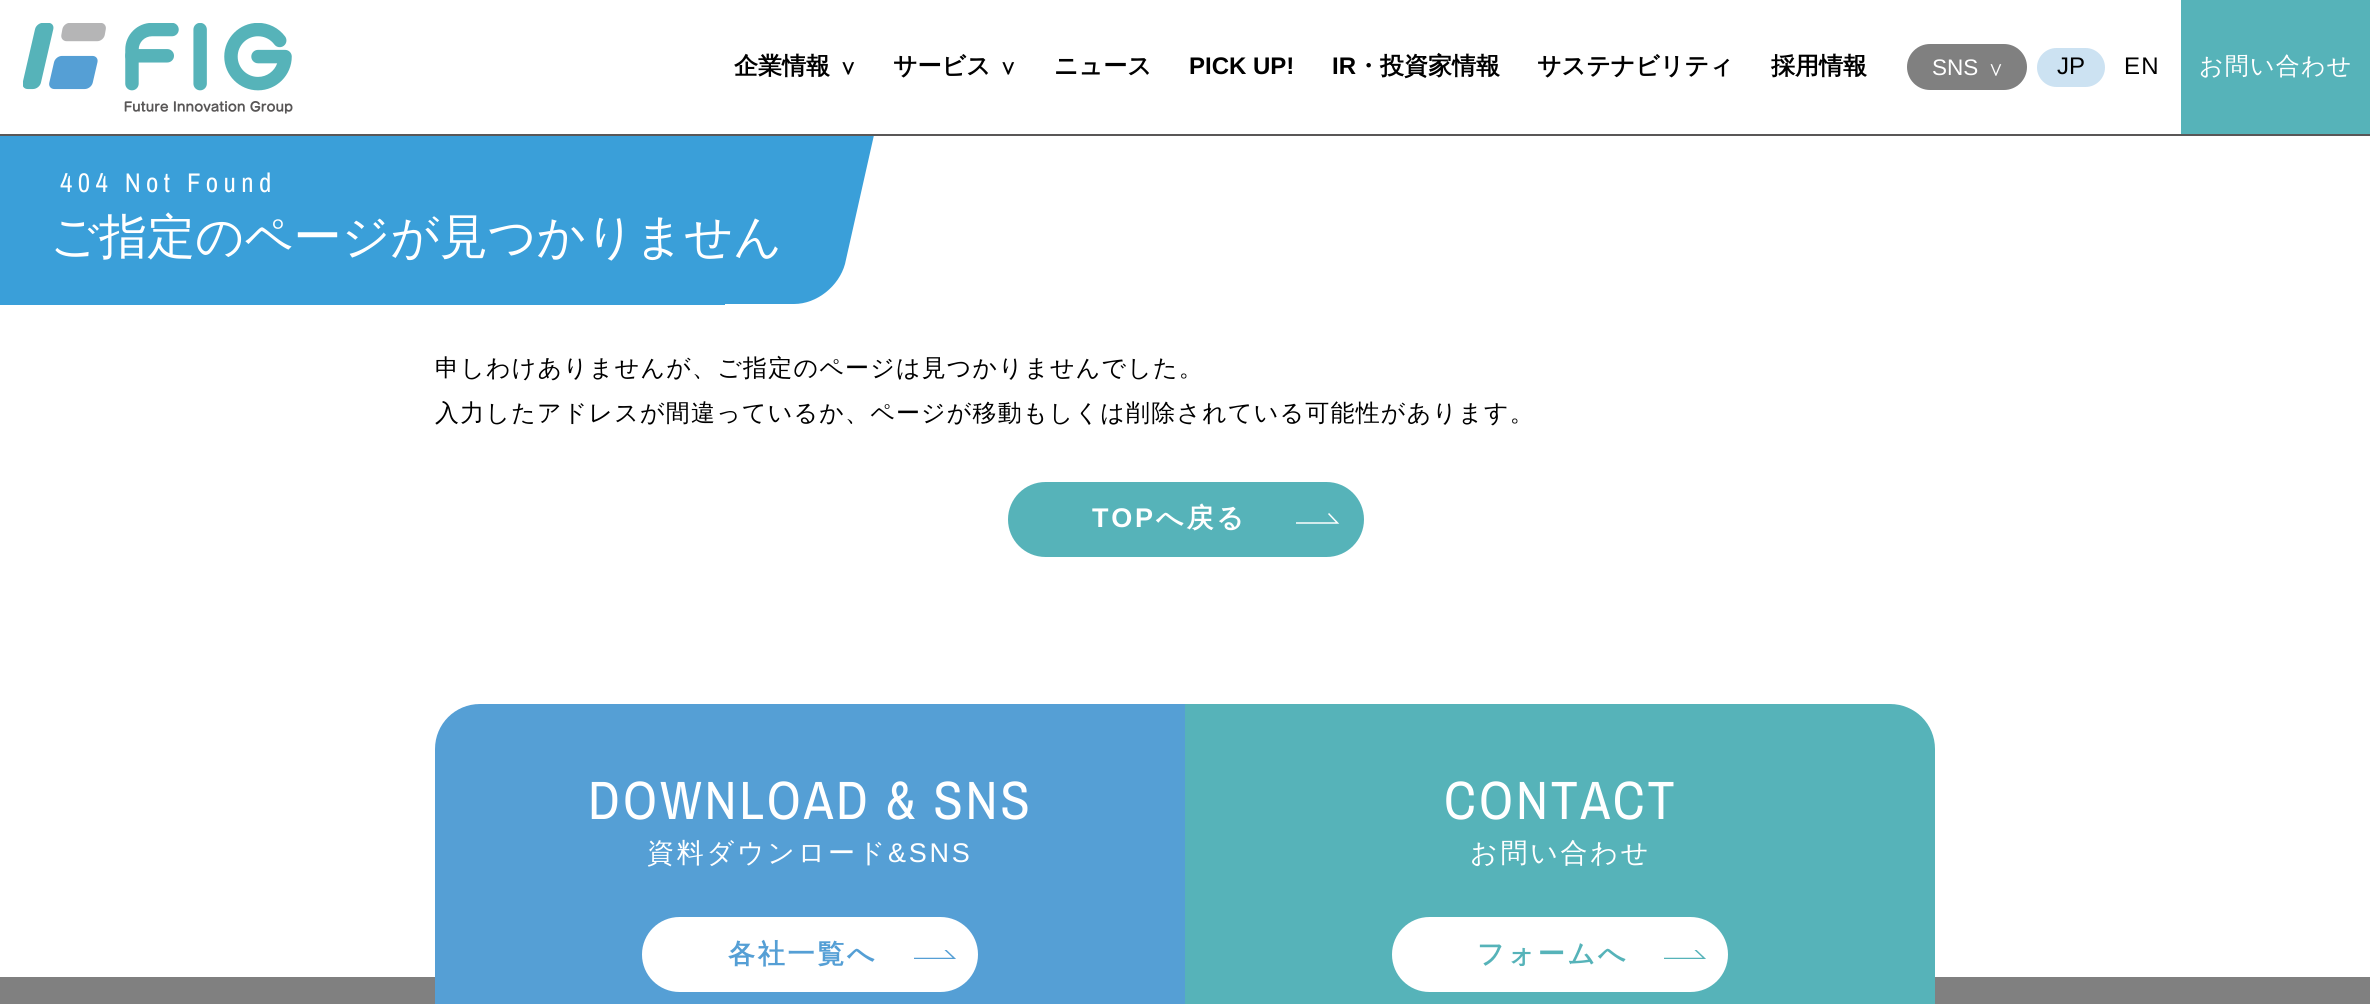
#include <cairo/cairo.h>
#include <math.h>
#include <stddef.h>

static cairo_t *cr;

static void use_color(int r, int g, int b) {
  cairo_set_source_rgb(cr, r / 255.0, g / 255.0, b / 255.0);
}

static void text(double x, double y, const char *s, const char *family, double size, int italic, int bold, int r, int g, int b) {
  cairo_select_font_face(cr, family, italic ? CAIRO_FONT_SLANT_ITALIC : CAIRO_FONT_SLANT_NORMAL,
    bold ? CAIRO_FONT_WEIGHT_BOLD : CAIRO_FONT_WEIGHT_NORMAL);
  cairo_set_font_size(cr, size);
  use_color(r, g, b);
  cairo_move_to(cr, x, y);
  cairo_show_text(cr, s);
}

static void spaced_text(double x, double y, const char *s, double letter, double word) {
  cairo_move_to(cr, x, y);
  while (*s) {
    char ch[5] = {0};
    int n = 0;
    do ch[n++] = *s++; while ((*s & 0xC0) == 0x80);
    cairo_show_text(cr, ch);
    cairo_rel_move_to(cr, letter + word * (*ch == ' '), 0);
  }
}

static void box(double x, double y, double w, double h, int r, int g, int b) {
  use_color(r, g, b);
  cairo_rectangle(cr, x, y, w, h);
  cairo_fill(cr);
}

static void round_rect(double x, double y, double w, double h, double r) {
  cairo_new_sub_path(cr);
  cairo_arc(cr, x + w - r, y + h - r, r, 0, M_PI / 2);
  cairo_arc(cr, x + r, y + h - r, r, M_PI / 2, M_PI);
  cairo_arc(cr, x + r, y + r, r, M_PI, 1.5 * M_PI);
  cairo_arc(cr, x + w - r, y + r, r, 1.5 * M_PI, 2 * M_PI);
  cairo_close_path(cr);
}

static void picture(const char *path, double x, double y, double w, double h) {
  cairo_surface_t *image = cairo_image_surface_create_from_png(path);
  cairo_save(cr);
  cairo_set_source_surface(cr, image, x, y);
  cairo_rectangle(cr, x, y, w, h);
  cairo_fill(cr);
  cairo_restore(cr);
  cairo_surface_destroy(image);
}

static void draw(void) {
  cairo_pattern_t *gradient;
  use_color(255, 255, 255);
  cairo_paint(cr);
  box(0, 136, 725, 169, 58, 159, 217);
  cairo_save(cr);
  cairo_rectangle(cr, 705, 135, 169, 169);
  cairo_clip(cr);
  cairo_new_path(cr);
  cairo_move_to(cr, 352, 304);
  cairo_line_to(cr, 794, 304);
  cairo_curve_to(cr, 817, 304, 839, 286, 845, 264);
  cairo_line_to(cr, 874, 135);
  cairo_line_to(cr, 352, 135);
  cairo_close_path(cr);
  cairo_fill(cr);
  cairo_restore(cr);
  box(0, 134, 2370, 2, 89, 87, 87);
  picture("img_01.png", 23, 23, 270, 91);
  use_color(128, 128, 128);
  round_rect(1907, 44, 120, 46, 23);
  cairo_fill(cr);
  use_color(204, 226, 242);
  round_rect(2037, 48, 68, 39, 19.5);
  cairo_fill(cr);
  box(2181, 0, 189, 134, 86, 179, 185);
  round_rect(1008, 482, 356, 75, 37.5);
  cairo_fill(cr);
  cairo_new_path(cr);
  cairo_move_to(cr, 1296, 523);
  cairo_line_to(cr, 1337.5, 523);
  cairo_line_to(cr, 1328.5, 513.5);
  use_color(255, 255, 255);
  cairo_set_line_width(cr, 1.5);
  cairo_stroke(cr);
  gradient = cairo_pattern_create_linear(1185, 577, 1185, 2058);
  cairo_pattern_add_color_stop_rgba(gradient, 0, 1, 1, 1, 1);
  cairo_pattern_add_color_stop_rgba(gradient, 0.27, 1, 1, 1, 1);
  cairo_pattern_add_color_stop_rgba(gradient, 0.27, 0.502, 0.502, 0.502, 1);
  cairo_pattern_add_color_stop_rgba(gradient, 1, 0.502, 0.502, 0.502, 1);
  cairo_set_source(cr, gradient);
  cairo_pattern_destroy(gradient);
  cairo_rectangle(cr, 0, 977, 2370, 27);
  cairo_fill(cr);
  use_color(85, 159, 213);
  cairo_new_path(cr);
  cairo_move_to(cr, 480, 704);
  cairo_line_to(cr, 1185, 704);
  cairo_line_to(cr, 1185, 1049);
  cairo_line_to(cr, 480, 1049);
  cairo_curve_to(cr, 455, 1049, 435, 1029, 435, 1004);
  cairo_line_to(cr, 435, 749);
  cairo_curve_to(cr, 435, 724, 455, 704, 480, 704);
  cairo_close_path(cr);
  cairo_fill(cr);
  use_color(255, 255, 255);
  round_rect(642, 917, 336, 75, 37.5);
  cairo_fill(cr);
  cairo_save(cr);
  cairo_rectangle(cr, 914, 950, 42, 9);
  cairo_clip(cr);
  cairo_new_path(cr);
  cairo_move_to(cr, 913.5, 958.5);
  cairo_line_to(cr, 954.5, 958.5);
  cairo_line_to(cr, 945, 949.5);
  use_color(85, 159, 213);
  cairo_stroke(cr);
  cairo_restore(cr);
  use_color(86, 179, 185);
  cairo_new_path(cr);
  cairo_move_to(cr, 1185, 704);
  cairo_line_to(cr, 1890, 704);
  cairo_curve_to(cr, 1915, 704, 1935, 724, 1935, 749);
  cairo_line_to(cr, 1935, 1004);
  cairo_curve_to(cr, 1935, 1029, 1915, 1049, 1890, 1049);
  cairo_line_to(cr, 1185, 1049);
  cairo_close_path(cr);
  cairo_fill(cr);
  use_color(255, 255, 255);
  round_rect(1392, 917, 336, 75, 37.5);
  cairo_fill(cr);
  cairo_save(cr);
  cairo_rectangle(cr, 1664, 950, 42, 9);
  cairo_clip(cr);
  cairo_new_path(cr);
  cairo_move_to(cr, 1663.5, 958.5);
  cairo_line_to(cr, 1704.5, 958.5);
  cairo_line_to(cr, 1695, 949.5);
  use_color(86, 179, 185);
  cairo_stroke(cr);
  cairo_restore(cr);
  text(734, 74, "企業情報", "WenQuanYi Zen Hei", 24, 0, 1, 0, 0, 0);
  cairo_save(cr);
  cairo_translate(cr, 841, 56);
  cairo_rotate(cr, 90 * M_PI / 180);
  spaced_text(0, 0, "＞", -5, 0);
  cairo_restore(cr);
  text(893, 74, "サービス", "WenQuanYi Zen Hei", 24, 0, 1, 0, 0, 0);
  cairo_save(cr);
  cairo_translate(cr, 1001, 56);
  cairo_rotate(cr, 90 * M_PI / 180);
  spaced_text(0, 0, "＞", -5, 0);
  cairo_restore(cr);
  text(1054, 74, "ニュース", "WenQuanYi Zen Hei", 24, 0, 1, 0, 0, 0);
  text(1189, 74, "PICK UP!", "Liberation Sans", 24, 0, 1, 0, 0, 0);
  text(1332, 74, "IR", "Liberation Sans", 24, 0, 1, 0, 0, 0);
  text(1356, 74, "・投資家情報", "WenQuanYi Zen Hei", 24, 0, 1, 0, 0, 0);
  text(1537, 74, "サステナビリティ", "WenQuanYi Zen Hei", 24, 0, 1, 0, 0, 0);
  text(1771, 74, "採用情報", "WenQuanYi Zen Hei", 24, 0, 1, 0, 0, 0);
  text(1932, 75, "SNS", "Liberation Sans", 22.5, 0, 0, 255, 255, 255);
  cairo_select_font_face(cr, "WenQuanYi Zen Hei Medium", CAIRO_FONT_SLANT_NORMAL, CAIRO_FONT_WEIGHT_NORMAL);
  cairo_set_font_size(cr, 24);
  cairo_save(cr);
  cairo_translate(cr, 1989, 58);
  cairo_rotate(cr, 90 * M_PI / 180);
  spaced_text(0, 0, "＞", -5, 0);
  cairo_restore(cr);
  text(2057, 74, "JP", "Liberation Sans", 24, 0, 0, 0, 0, 0);
  spaced_text(2124, 74, "EN", 1.2, 0);
  cairo_select_font_face(cr, "WenQuanYi Zen Hei Medium", CAIRO_FONT_SLANT_NORMAL, CAIRO_FONT_WEIGHT_NORMAL);
  use_color(255, 255, 255);
  spaced_text(2199, 74, "お問い合わせ", 1.2, 0);
  cairo_select_font_face(cr, "Archivo Narrow", CAIRO_FONT_SLANT_NORMAL, CAIRO_FONT_WEIGHT_NORMAL);
  cairo_set_font_size(cr, 27);
  spaced_text(60, 192, "404 Not Found", 5.4, 0);
  text(50, 253, "ご指定のページが見つかりません", "WenQuanYi Zen Hei Medium", 48, 0, 0, 255, 255, 255);
  cairo_set_font_size(cr, 24);
  use_color(0, 0, 0);
  spaced_text(435, 376, "申しわけありませんが、ご指定のページは見つかりませんでした。", 1.2, 0);
  spaced_text(435, 421, "入力したアドレスが間違っているか、ページが移動もしくは削除されている可能性があります。", 1.2, 0);
  cairo_select_font_face(cr, "Liberation Sans", CAIRO_FONT_SLANT_NORMAL, CAIRO_FONT_WEIGHT_BOLD);
  cairo_set_font_size(cr, 27);
  use_color(255, 255, 255);
  spaced_text(1092, 527, "TOP", 2.75, 0);
  cairo_select_font_face(cr, "WenQuanYi Zen Hei", CAIRO_FONT_SLANT_NORMAL, CAIRO_FONT_WEIGHT_BOLD);
  spaced_text(1156, 527, "へ戻る", 2.75, 0);
  cairo_select_font_face(cr, "Archivo Narrow", CAIRO_FONT_SLANT_NORMAL, CAIRO_FONT_WEIGHT_NORMAL);
  cairo_set_font_size(cr, 54);
  spaced_text(588, 819, "DOWNLOAD & SNS", 2.75, 0);
  cairo_select_font_face(cr, "WenQuanYi Zen Hei Medium", CAIRO_FONT_SLANT_NORMAL, CAIRO_FONT_WEIGHT_NORMAL);
  cairo_set_font_size(cr, 27);
  spaced_text(647, 862, "資料ダウンロード", 2.75, 0);
  cairo_select_font_face(cr, "Liberation Sans", CAIRO_FONT_SLANT_NORMAL, CAIRO_FONT_WEIGHT_NORMAL);
  spaced_text(888, 862, "&SNS", 2.75, 0);
  cairo_select_font_face(cr, "WenQuanYi Zen Hei", CAIRO_FONT_SLANT_NORMAL, CAIRO_FONT_WEIGHT_BOLD);
  use_color(85, 159, 213);
  spaced_text(728, 963, "各社一覧へ", 2.75, 0);
  cairo_select_font_face(cr, "Archivo Narrow", CAIRO_FONT_SLANT_NORMAL, CAIRO_FONT_WEIGHT_NORMAL);
  cairo_set_font_size(cr, 54);
  use_color(255, 255, 255);
  spaced_text(1444, 819, "CONTACT", 2.75, 0);
  cairo_select_font_face(cr, "WenQuanYi Zen Hei Medium", CAIRO_FONT_SLANT_NORMAL, CAIRO_FONT_WEIGHT_NORMAL);
  cairo_set_font_size(cr, 27);
  spaced_text(1470, 862, "お問い合わせ", 2.75, 0);
  cairo_select_font_face(cr, "WenQuanYi Zen Hei", CAIRO_FONT_SLANT_NORMAL, CAIRO_FONT_WEIGHT_BOLD);
  use_color(86, 179, 185);
  spaced_text(1477, 963, "フォームへ", 2.75, 0);
}

int main(void) {
  cairo_surface_t *surface = cairo_image_surface_create(CAIRO_FORMAT_RGB24, 2370, 1004);
  cr = cairo_create(surface);
  cairo_font_options_t *options = cairo_font_options_create();
  cairo_font_options_set_hint_metrics(options, CAIRO_HINT_METRICS_OFF);
  cairo_font_options_set_hint_style(options, CAIRO_HINT_STYLE_NONE);
  cairo_set_font_options(cr, options);
  cairo_set_miter_limit(cr, 4);
  draw();
  cairo_surface_write_to_png(surface, "out.png");
  cairo_font_options_destroy(options);
  cairo_destroy(cr);
  cairo_surface_destroy(surface);
  return 0;
}
